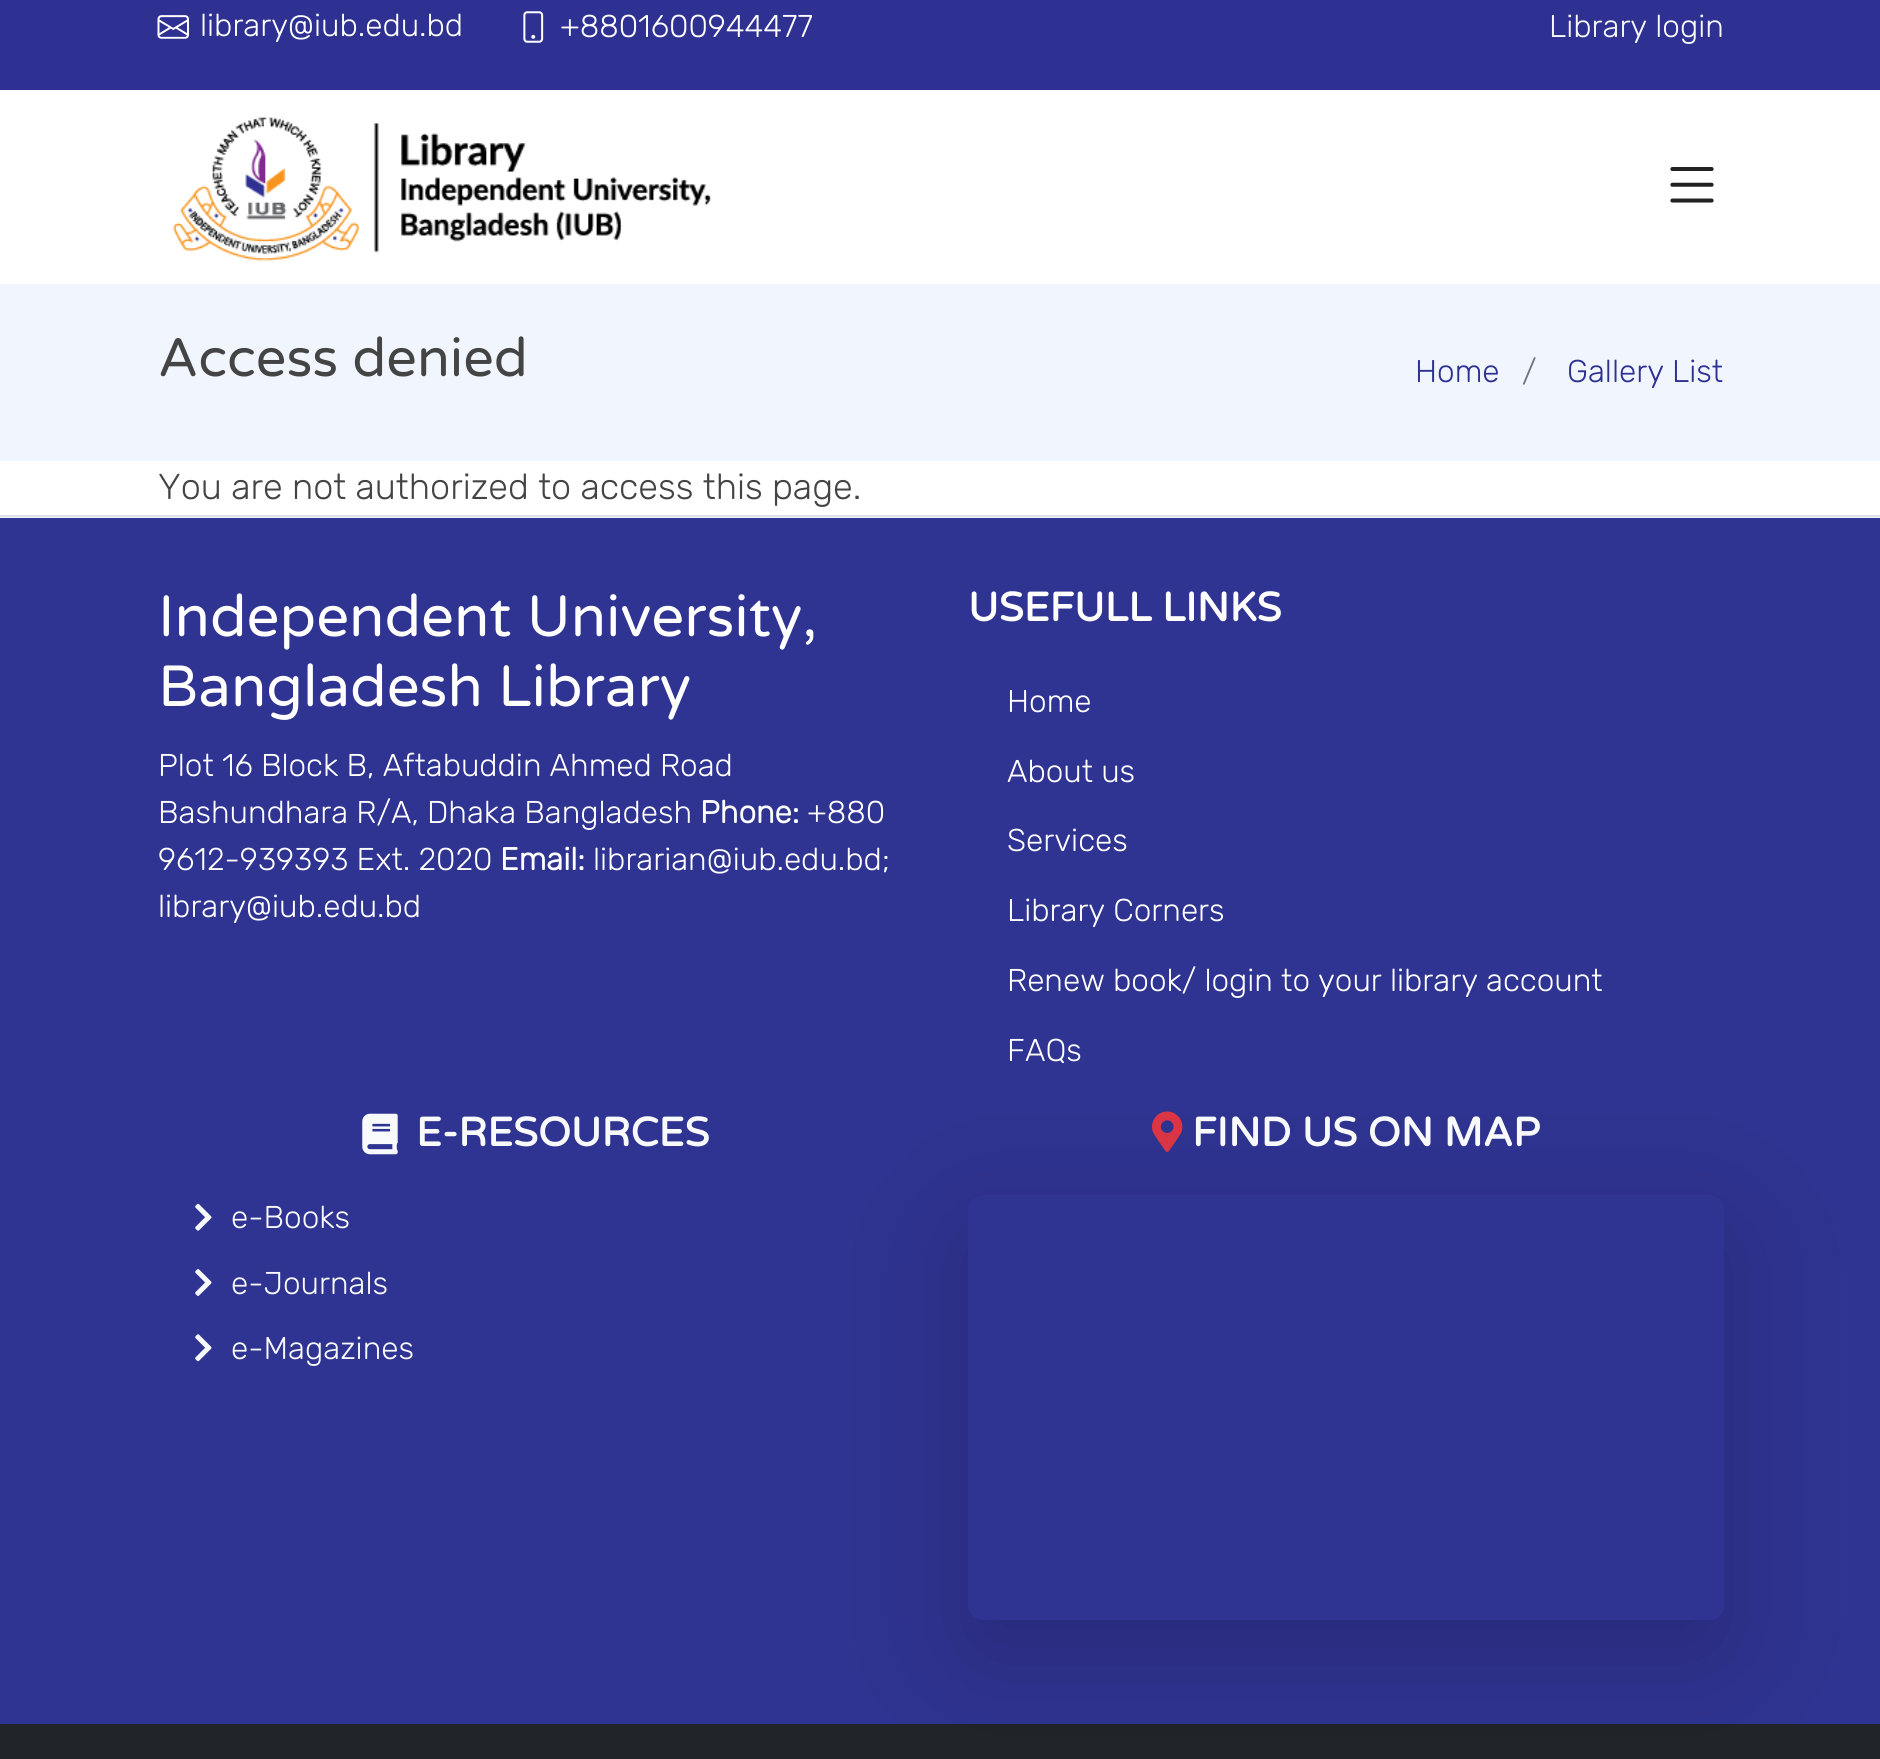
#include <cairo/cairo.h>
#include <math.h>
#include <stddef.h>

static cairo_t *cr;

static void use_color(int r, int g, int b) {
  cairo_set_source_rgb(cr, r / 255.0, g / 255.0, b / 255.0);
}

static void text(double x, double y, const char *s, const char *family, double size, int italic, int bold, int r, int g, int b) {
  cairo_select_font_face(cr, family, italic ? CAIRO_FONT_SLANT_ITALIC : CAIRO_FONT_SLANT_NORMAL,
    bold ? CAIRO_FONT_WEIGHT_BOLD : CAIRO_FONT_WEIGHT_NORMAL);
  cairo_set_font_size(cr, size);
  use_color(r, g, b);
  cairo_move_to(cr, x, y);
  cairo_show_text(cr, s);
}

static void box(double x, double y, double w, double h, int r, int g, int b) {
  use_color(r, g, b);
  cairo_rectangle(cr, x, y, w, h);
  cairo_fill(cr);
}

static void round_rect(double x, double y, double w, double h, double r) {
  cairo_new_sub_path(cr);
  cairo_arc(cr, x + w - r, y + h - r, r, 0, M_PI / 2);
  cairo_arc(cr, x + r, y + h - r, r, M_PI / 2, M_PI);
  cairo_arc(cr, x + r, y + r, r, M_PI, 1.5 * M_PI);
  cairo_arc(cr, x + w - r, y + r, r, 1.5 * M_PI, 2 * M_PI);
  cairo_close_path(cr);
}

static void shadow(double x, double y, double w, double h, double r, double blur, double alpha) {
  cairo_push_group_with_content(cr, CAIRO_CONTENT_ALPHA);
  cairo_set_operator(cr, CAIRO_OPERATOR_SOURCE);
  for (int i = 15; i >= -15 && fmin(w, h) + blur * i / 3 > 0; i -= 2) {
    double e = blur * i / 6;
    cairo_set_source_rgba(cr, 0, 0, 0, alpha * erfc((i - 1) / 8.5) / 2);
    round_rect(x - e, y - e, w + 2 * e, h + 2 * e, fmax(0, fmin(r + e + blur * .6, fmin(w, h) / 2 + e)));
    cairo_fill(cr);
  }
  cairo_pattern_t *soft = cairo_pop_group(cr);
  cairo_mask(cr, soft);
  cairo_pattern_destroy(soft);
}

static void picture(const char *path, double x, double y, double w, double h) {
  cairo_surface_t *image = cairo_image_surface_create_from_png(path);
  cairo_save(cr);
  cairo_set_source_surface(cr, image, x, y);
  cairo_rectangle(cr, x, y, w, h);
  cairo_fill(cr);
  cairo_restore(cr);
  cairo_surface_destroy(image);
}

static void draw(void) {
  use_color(255, 255, 255);
  cairo_paint(cr);
  box(0, 0, 1880, 90, 46, 49, 146);
  picture("img_01.png", 157, 15, 32, 24);
  picture("img_02.png", 523, 11, 21, 32);
  picture("img_03.png", 172, 117, 539, 145);
  picture("img_04.png", 1670, 167, 44, 36);
  box(0, 284, 1880, 177, 241, 246, 254);
  box(0, 517, 1880, 1, 241, 246, 254);
  box(0, 515, 1880, 2, 222, 226, 230);
  box(0, 518, 1880, 1206, 47, 51, 145);
  picture("img_05.png", 362, 1113, 36, 42);
  picture("img_06.png", 195, 1203, 17, 28);
  picture("img_07.png", 195, 1269, 17, 27);
  picture("img_08.png", 195, 1334, 17, 28);
  picture("img_09.png", 1152, 1111, 31, 41);
  box(0, 1724, 1880, 35, 33, 37, 41);
  cairo_save(cr);
  cairo_set_fill_rule(cr, CAIRO_FILL_RULE_EVEN_ODD);
  cairo_new_path(cr);
  cairo_move_to(cr, 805, 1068);
  cairo_line_to(cr, 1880, 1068);
  cairo_line_to(cr, 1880, 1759);
  cairo_line_to(cr, 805, 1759);
  cairo_close_path(cr);
  cairo_move_to(cr, 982, 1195);
  cairo_line_to(cr, 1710, 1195);
  cairo_curve_to(cr, 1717.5, 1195, 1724, 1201.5, 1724, 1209);
  cairo_line_to(cr, 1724, 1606);
  cairo_curve_to(cr, 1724, 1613.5, 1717.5, 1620, 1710, 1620);
  cairo_line_to(cr, 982, 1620);
  cairo_curve_to(cr, 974.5, 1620, 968, 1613.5, 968, 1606);
  cairo_line_to(cr, 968, 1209);
  cairo_curve_to(cr, 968, 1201.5, 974.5, 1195, 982, 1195);
  cairo_close_path(cr);
  cairo_clip(cr);
  use_color(0, 0, 0);
  shadow(968, 1231, 756, 425, 14, 54, 0.18);
  cairo_restore(cr);
  text(200, 36, "library@iub.edu.bd", "Rubik Light", 31.5, 0, 0, 255, 255, 255);
  text(560, 37, "+8801600944477", "Rubik Light", 31.5, 0, 0, 255, 255, 255);
  text(1549, 37, "Library login", "Rubik Light", 31.5, 0, 0, 248, 249, 250);
  text(158, 376, "Access denied", "Varela Round", 54, 0, 0, 68, 68, 68);
  text(1415, 382, "Home", "Rubik Light", 31.5, 0, 0, 46, 49, 146);
  text(1522, 382, "/", "Rubik Light", 31.5, 0, 0, 108, 117, 125);
  text(1567, 382, "Gallery List", "Rubik Light", 31.5, 0, 0, 46, 49, 146);
  text(158, 499, "You are not authorized to access this page.", "Rubik Light", 36, 0, 0, 68, 68, 68);
  text(158, 636, "Independent University,", "Varela Round", 58.1, 0, 0, 255, 255, 255);
  text(158, 706, "Bangladesh Library", "Varela Round", 58.1, 0, 0, 255, 255, 255);
  text(158, 776, "Plot 16 Block B, Aftabuddin Ahmed Road", "Rubik Light", 31.5, 0, 0, 255, 255, 255);
  text(158, 823, "Bashundhara R/A, Dhaka Bangladesh", "Rubik Light", 31.5, 0, 0, 255, 255, 255);
  text(700, 823, "Phone:", "Rubik", 31.5, 0, 1, 255, 255, 255);
  text(807, 823, "+880", "Rubik Light", 31.5, 0, 0, 255, 255, 255);
  text(158, 870, "9612-939393 Ext. 2020", "Rubik Light", 31.5, 0, 0, 255, 255, 255);
  text(500, 870, "Email:", "Rubik", 31.5, 0, 1, 255, 255, 255);
  text(593, 870, "librarian@iub.edu.bd;", "Rubik Light", 31.5, 0, 0, 255, 255, 255);
  text(158, 917, "library@iub.edu.bd", "Rubik Light", 31.5, 0, 0, 255, 255, 255);
  text(968, 621, "USEFULL LINKS", "Varela Round", 40.5, 0, 1, 255, 255, 255);
  text(1007, 712, "Home", "Rubik Light", 31.5, 0, 0, 255, 255, 255);
  text(1007, 782, "About us", "Rubik Light", 31.5, 0, 0, 255, 255, 255);
  text(1007, 851, "Services", "Rubik Light", 31.5, 0, 0, 255, 255, 255);
  text(1007, 921, "Library Corners", "Rubik Light", 31.5, 0, 0, 255, 255, 255);
  text(1007, 991, "Renew book/ login to your library account", "Rubik Light", 31.5, 0, 0, 255, 255, 255);
  text(1007, 1061, "FAQs", "Rubik Light", 31.5, 0, 0, 255, 255, 255);
  text(416, 1146, "E-RESOURCES", "Varela Round", 40.5, 0, 1, 248, 249, 250);
  text(231, 1228, "e-Books", "Rubik Light", 31.5, 0, 0, 248, 249, 250);
  text(231, 1294, "e-Journals", "Rubik Light", 31.5, 0, 0, 248, 249, 250);
  text(231, 1359, "e-Magazines", "Rubik Light", 31.5, 0, 0, 248, 249, 250);
  text(1192, 1146, "FIND US ON MAP", "Varela Round", 40.5, 0, 1, 248, 249, 250);
}

int main(void) {
  cairo_surface_t *surface = cairo_image_surface_create(CAIRO_FORMAT_RGB24, 1880, 1759);
  cr = cairo_create(surface);
  cairo_font_options_t *options = cairo_font_options_create();
  cairo_font_options_set_hint_metrics(options, CAIRO_HINT_METRICS_OFF);
  cairo_font_options_set_hint_style(options, CAIRO_HINT_STYLE_NONE);
  cairo_set_font_options(cr, options);
  cairo_set_miter_limit(cr, 4);
  draw();
  cairo_surface_write_to_png(surface, "out.png");
  cairo_font_options_destroy(options);
  cairo_destroy(cr);
  cairo_surface_destroy(surface);
  return 0;
}
